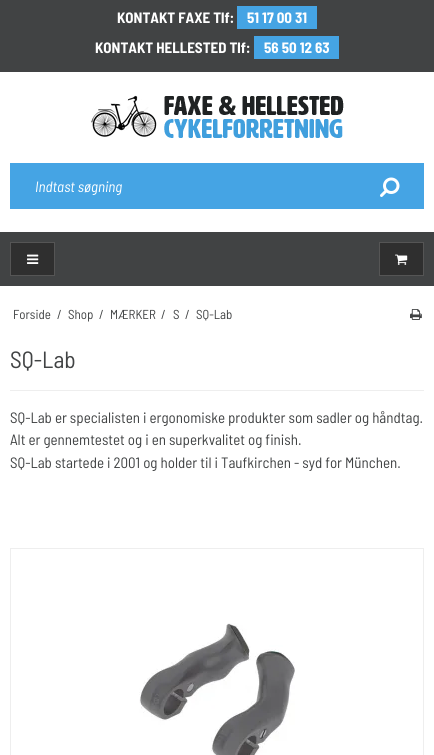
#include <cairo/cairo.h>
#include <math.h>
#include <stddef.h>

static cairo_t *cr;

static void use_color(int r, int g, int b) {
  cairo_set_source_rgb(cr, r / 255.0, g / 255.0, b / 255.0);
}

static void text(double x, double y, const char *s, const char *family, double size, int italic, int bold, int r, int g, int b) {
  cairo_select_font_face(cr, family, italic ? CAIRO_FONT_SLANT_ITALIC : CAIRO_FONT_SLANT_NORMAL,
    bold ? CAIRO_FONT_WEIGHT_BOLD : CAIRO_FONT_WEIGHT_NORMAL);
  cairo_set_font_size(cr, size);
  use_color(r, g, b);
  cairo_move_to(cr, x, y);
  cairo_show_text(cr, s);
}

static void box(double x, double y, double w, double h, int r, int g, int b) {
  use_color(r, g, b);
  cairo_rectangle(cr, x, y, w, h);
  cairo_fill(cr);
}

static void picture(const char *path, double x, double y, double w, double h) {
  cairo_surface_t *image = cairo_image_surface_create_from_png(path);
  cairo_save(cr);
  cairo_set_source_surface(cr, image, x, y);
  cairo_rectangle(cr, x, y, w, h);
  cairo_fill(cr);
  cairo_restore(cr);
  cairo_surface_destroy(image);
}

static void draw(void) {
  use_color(255, 255, 255);
  cairo_paint(cr);
  box(0, 0, 434, 72, 65, 67, 68);
  box(237, 6, 80, 23, 69, 164, 228);
  box(254, 36, 85, 23, 69, 164, 228);
  picture("img_01.png", 91, 95, 253, 43);
  box(10, 163, 414, 46, 69, 164, 228);
  picture("img_02.png", 380, 177, 20, 20);
  box(0, 232, 434, 54, 65, 67, 68);
  use_color(47, 47, 47);
  cairo_rectangle(cr, 10.5, 242.5, 44, 33);
  cairo_fill_preserve(cr);
  use_color(85, 85, 85);
  cairo_set_line_width(cr, 1);
  cairo_stroke(cr);
  picture("img_03.png", 27, 254, 12, 10);
  use_color(47, 47, 47);
  cairo_rectangle(cr, 379.5, 242.5, 44, 33);
  cairo_fill_preserve(cr);
  use_color(85, 85, 85);
  cairo_stroke(cr);
  picture("img_04.png", 395, 254, 13, 11);
  picture("img_05.png", 410, 309, 12, 11);
  box(10, 390, 414, 1, 238, 238, 238);
  cairo_rectangle(cr, 10.5, 548.5, 413, 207);
  cairo_stroke(cr);
  picture("img_06.png", 139, 623, 156, 132);
  text(117, 23, "KONTAKT FAXE Tlf:", "Barlow Semi Condensed", 15, 0, 1, 255, 255, 255);
  text(247, 23, "51 17 00 31", "Barlow Semi Condensed", 15, 0, 1, 255, 255, 255);
  text(95, 53, "KONTAKT HELLESTED Tlf:", "Barlow Semi Condensed", 15, 0, 1, 255, 255, 255);
  text(264, 53, "56 50 12 63", "Barlow Semi Condensed", 15, 0, 1, 255, 255, 255);
  text(35, 192, "Indtast søgning", "Barlow Semi Condensed", 15, 1, 0, 255, 255, 255);
  text(13, 319, "Forside", "Barlow Semi Condensed", 13, 0, 0, 65, 67, 68);
  text(57, 319, "/", "Barlow Semi Condensed", 13, 0, 0, 65, 67, 68);
  text(68, 319, "Shop", "Barlow Semi Condensed", 13, 0, 0, 65, 67, 68);
  text(99, 319, "/", "Barlow Semi Condensed", 13, 0, 0, 65, 67, 68);
  text(110, 319, "MÆRKER", "Barlow Semi Condensed", 13, 0, 0, 65, 67, 68);
  text(161, 319, "/", "Barlow Semi Condensed", 13, 0, 0, 65, 67, 68);
  text(173, 319, "S", "Barlow Semi Condensed", 13, 0, 0, 65, 67, 68);
  text(185, 319, "/", "Barlow Semi Condensed", 13, 0, 0, 65, 67, 68);
  text(196, 319, "SQ-Lab", "Barlow Semi Condensed", 13, 0, 0, 65, 67, 68);
  text(10, 368, "SQ-Lab", "Barlow Semi Condensed", 23.5, 0, 0, 65, 67, 68);
  text(10, 423, "SQ-Lab er specialisten i ergonomiske produkter som sadler og håndtag.", "Barlow Semi Condensed", 15, 0, 0, 65, 67, 68);
  text(10, 445, "Alt er gennemtestet og i en superkvalitet og finish.", "Barlow Semi Condensed", 15, 0, 0, 65, 67, 68);
  text(10, 468, "SQ-Lab startede i 2001 og holder til i Taufkirchen - syd for München.", "Barlow Semi Condensed", 15, 0, 0, 65, 67, 68);
}

int main(void) {
  cairo_surface_t *surface = cairo_image_surface_create(CAIRO_FORMAT_RGB24, 434, 755);
  cr = cairo_create(surface);
  cairo_font_options_t *options = cairo_font_options_create();
  cairo_font_options_set_hint_metrics(options, CAIRO_HINT_METRICS_OFF);
  cairo_font_options_set_hint_style(options, CAIRO_HINT_STYLE_NONE);
  cairo_set_font_options(cr, options);
  cairo_set_miter_limit(cr, 4);
  draw();
  cairo_surface_write_to_png(surface, "out.png");
  cairo_font_options_destroy(options);
  cairo_destroy(cr);
  cairo_surface_destroy(surface);
  return 0;
}
